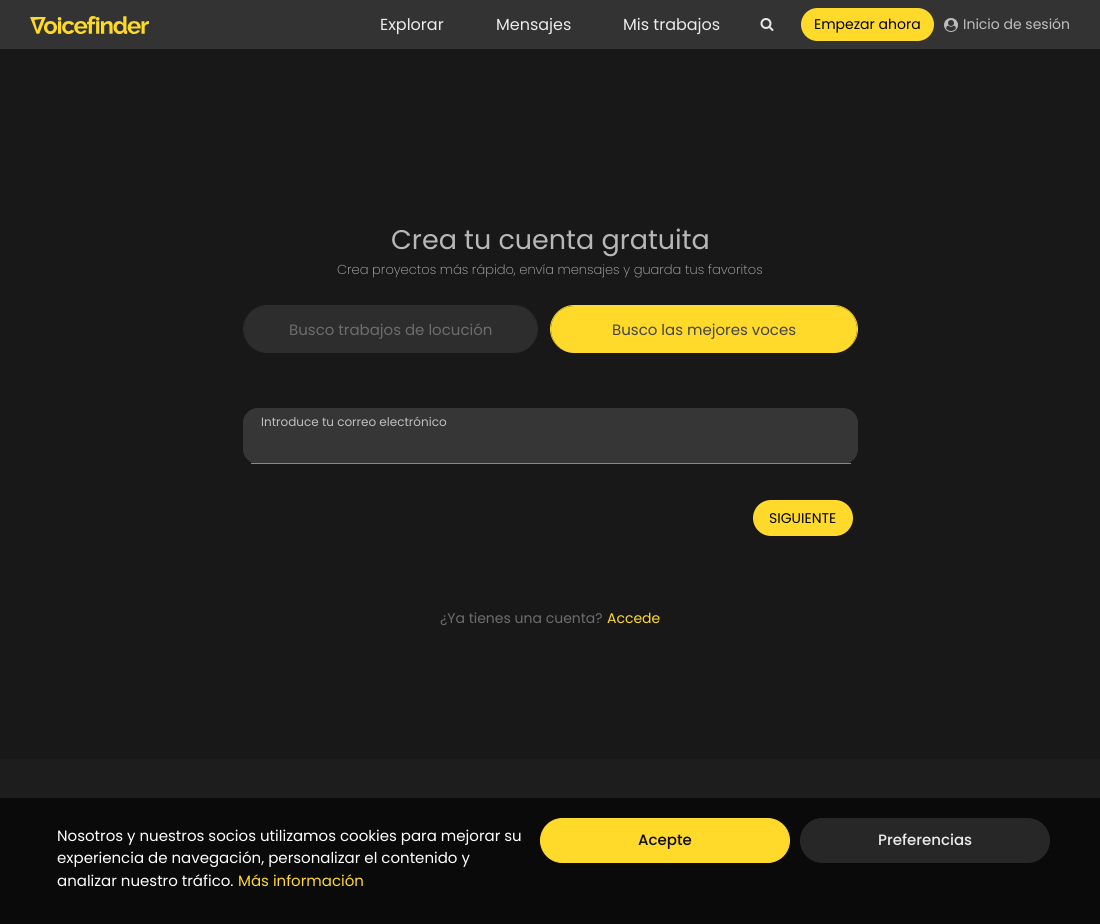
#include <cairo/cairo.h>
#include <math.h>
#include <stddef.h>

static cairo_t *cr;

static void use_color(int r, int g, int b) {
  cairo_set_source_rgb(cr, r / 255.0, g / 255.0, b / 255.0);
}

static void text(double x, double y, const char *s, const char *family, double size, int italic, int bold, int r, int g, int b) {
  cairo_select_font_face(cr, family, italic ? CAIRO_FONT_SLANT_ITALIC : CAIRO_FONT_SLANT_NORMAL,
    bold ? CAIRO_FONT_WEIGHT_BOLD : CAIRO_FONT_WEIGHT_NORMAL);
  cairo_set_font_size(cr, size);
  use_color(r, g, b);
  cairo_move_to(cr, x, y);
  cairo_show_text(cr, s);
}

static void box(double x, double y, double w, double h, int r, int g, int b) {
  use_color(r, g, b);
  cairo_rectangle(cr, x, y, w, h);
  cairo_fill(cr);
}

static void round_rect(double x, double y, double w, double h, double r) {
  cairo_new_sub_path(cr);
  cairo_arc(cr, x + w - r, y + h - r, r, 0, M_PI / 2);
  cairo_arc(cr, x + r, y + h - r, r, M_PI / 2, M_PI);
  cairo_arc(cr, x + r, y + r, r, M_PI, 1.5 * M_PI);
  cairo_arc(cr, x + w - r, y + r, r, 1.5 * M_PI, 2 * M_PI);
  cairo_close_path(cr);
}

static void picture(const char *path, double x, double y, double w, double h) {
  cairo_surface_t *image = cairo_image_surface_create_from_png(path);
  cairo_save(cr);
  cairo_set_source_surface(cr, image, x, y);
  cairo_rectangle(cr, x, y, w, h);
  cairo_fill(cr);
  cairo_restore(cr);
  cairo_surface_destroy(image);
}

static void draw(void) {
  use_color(24, 24, 24);
  cairo_paint(cr);
  box(0, 0, 1100, 49, 51, 51, 51);
  picture("img_01.png", 30, 16, 119, 18);
  picture("img_02.png", 760, 18, 14, 13);
  use_color(255, 218, 42);
  round_rect(801, 8, 133, 33, 16.5);
  cairo_fill(cr);
  picture("img_03.png", 944, 18, 14, 14);
  use_color(45, 45, 45);
  cairo_new_path(cr);
  cairo_move_to(cr, 267, 306);
  cairo_line_to(cr, 514, 306);
  cairo_curve_to(cr, 527, 306, 537, 316, 537, 329);
  cairo_curve_to(cr, 537, 342, 527, 353, 514, 353);
  cairo_line_to(cr, 267, 353);
  cairo_curve_to(cr, 254, 353, 244, 342, 244, 329);
  cairo_curve_to(cr, 244, 316, 254, 306, 267, 306);
  cairo_close_path(cr);
  cairo_fill(cr);
  cairo_set_fill_rule(cr, CAIRO_FILL_RULE_EVEN_ODD);
  cairo_new_path(cr);
  cairo_move_to(cr, 267, 305);
  cairo_line_to(cr, 514, 305);
  cairo_curve_to(cr, 527, 305, 538, 316, 538, 329);
  cairo_curve_to(cr, 538, 342, 527, 353, 514, 353);
  cairo_line_to(cr, 267, 353);
  cairo_curve_to(cr, 254, 353, 243, 342, 243, 329);
  cairo_curve_to(cr, 243, 316, 254, 305, 267, 305);
  cairo_close_path(cr);
  cairo_move_to(cr, 267, 306);
  cairo_line_to(cr, 514, 306);
  cairo_curve_to(cr, 527, 306, 537, 316, 537, 329);
  cairo_curve_to(cr, 537, 342, 527, 353, 514, 353);
  cairo_line_to(cr, 267, 353);
  cairo_curve_to(cr, 254, 353, 244, 342, 244, 329);
  cairo_curve_to(cr, 244, 316, 254, 306, 267, 306);
  cairo_close_path(cr);
  cairo_fill(cr);
  use_color(255, 218, 42);
  cairo_set_fill_rule(cr, CAIRO_FILL_RULE_WINDING);
  cairo_new_path(cr);
  cairo_move_to(cr, 574, 306);
  cairo_line_to(cr, 834, 306);
  cairo_curve_to(cr, 847, 306, 857, 316, 857, 329);
  cairo_curve_to(cr, 857, 342, 847, 353, 834, 353);
  cairo_line_to(cr, 574, 353);
  cairo_curve_to(cr, 561, 353, 551, 342, 551, 329);
  cairo_curve_to(cr, 551, 316, 561, 306, 574, 306);
  cairo_close_path(cr);
  cairo_fill(cr);
  cairo_set_fill_rule(cr, CAIRO_FILL_RULE_EVEN_ODD);
  cairo_new_path(cr);
  cairo_move_to(cr, 574, 305);
  cairo_line_to(cr, 834, 305);
  cairo_curve_to(cr, 847, 305, 858, 316, 858, 329);
  cairo_curve_to(cr, 858, 342, 847, 353, 834, 353);
  cairo_line_to(cr, 574, 353);
  cairo_curve_to(cr, 561, 353, 550, 342, 550, 329);
  cairo_curve_to(cr, 550, 316, 561, 305, 574, 305);
  cairo_close_path(cr);
  cairo_move_to(cr, 574, 306);
  cairo_line_to(cr, 834, 306);
  cairo_curve_to(cr, 847, 306, 857, 316, 857, 329);
  cairo_curve_to(cr, 857, 342, 847, 353, 834, 353);
  cairo_line_to(cr, 574, 353);
  cairo_curve_to(cr, 561, 353, 551, 342, 551, 329);
  cairo_curve_to(cr, 551, 316, 561, 306, 574, 306);
  cairo_close_path(cr);
  cairo_fill(cr);
  use_color(54, 54, 54);
  round_rect(243, 408, 615, 56, 15);
  cairo_fill(cr);
  box(251, 463, 600, 1, 136, 136, 136);
  use_color(255, 218, 42);
  round_rect(753, 500, 100, 36, 18);
  cairo_fill(cr);
  box(0, 759, 1100, 39, 29, 29, 29);
  box(0, 798, 1100, 126, 10, 10, 10);
  use_color(255, 218, 42);
  round_rect(540.5, 818.5, 249, 44, 22);
  cairo_fill_preserve(cr);
  cairo_set_line_width(cr, 1);
  cairo_stroke(cr);
  use_color(39, 39, 39);
  round_rect(800.5, 818.5, 249, 44, 22);
  cairo_fill_preserve(cr);
  cairo_stroke(cr);
  text(380, 30, "Explorar", "Poppins", 16, 0, 0, 235, 235, 235);
  text(496, 30, "Mensajes", "Poppins", 16, 0, 0, 235, 235, 235);
  text(623, 30, "Mis trabajos", "Poppins", 16, 0, 0, 235, 235, 235);
  text(814, 29, "Empezar ahora", "Poppins", 14, 0, 0, 0, 0, 0);
  text(963, 29, "Inicio de sesión", "Poppins", 14, 0, 0, 191, 191, 191);
  text(391, 249, "Crea tu cuenta gratuita", "Poppins", 27, 0, 0, 183, 183, 183);
  text(337, 274, "Crea proyectos más rápido, envía mensajes y guarda tus favoritos", "Poppins ExtraLight", 13, 0, 0, 183, 183, 183);
  text(289, 335, "Busco trabajos de locución", "Poppins", 15, 0, 0, 108, 108, 108);
  text(612, 335, "Busco las mejores voces", "Poppins", 15, 0, 0, 68, 68, 68);
  text(261, 426, "Introduce tu correo electrónico", "Poppins", 12, 0, 0, 191, 191, 191);
  text(769, 523, "SIGUIENTE", "Poppins", 14, 0, 0, 0, 0, 0);
  text(440, 623, "¿Ya tienes una cuenta?", "Poppins", 14, 0, 0, 108, 108, 108);
  text(607, 623, "Accede", "Poppins", 14, 0, 0, 255, 218, 42);
  text(57, 841, "Nosotros y nuestros socios utilizamos cookies para mejorar su", "Poppins", 15, 0, 0, 255, 255, 255);
  text(57, 863, "experiencia de navegación, personalizar el contenido y", "Poppins", 15, 0, 0, 255, 255, 255);
  text(57, 886, "analizar nuestro tráfico.", "Poppins", 15, 0, 0, 255, 255, 255);
  text(238, 886, "Más información", "Poppins", 15, 0, 0, 255, 218, 42);
  text(638, 845, "Acepte", "Poppins Medium", 15, 0, 0, 10, 10, 10);
  text(878, 845, "Preferencias", "Poppins Medium", 15, 0, 0, 235, 235, 235);
}

int main(void) {
  cairo_surface_t *surface = cairo_image_surface_create(CAIRO_FORMAT_RGB24, 1100, 924);
  cr = cairo_create(surface);
  cairo_font_options_t *options = cairo_font_options_create();
  cairo_font_options_set_hint_metrics(options, CAIRO_HINT_METRICS_OFF);
  cairo_font_options_set_hint_style(options, CAIRO_HINT_STYLE_NONE);
  cairo_set_font_options(cr, options);
  cairo_set_miter_limit(cr, 4);
  draw();
  cairo_surface_write_to_png(surface, "out.png");
  cairo_font_options_destroy(options);
  cairo_destroy(cr);
  cairo_surface_destroy(surface);
  return 0;
}
